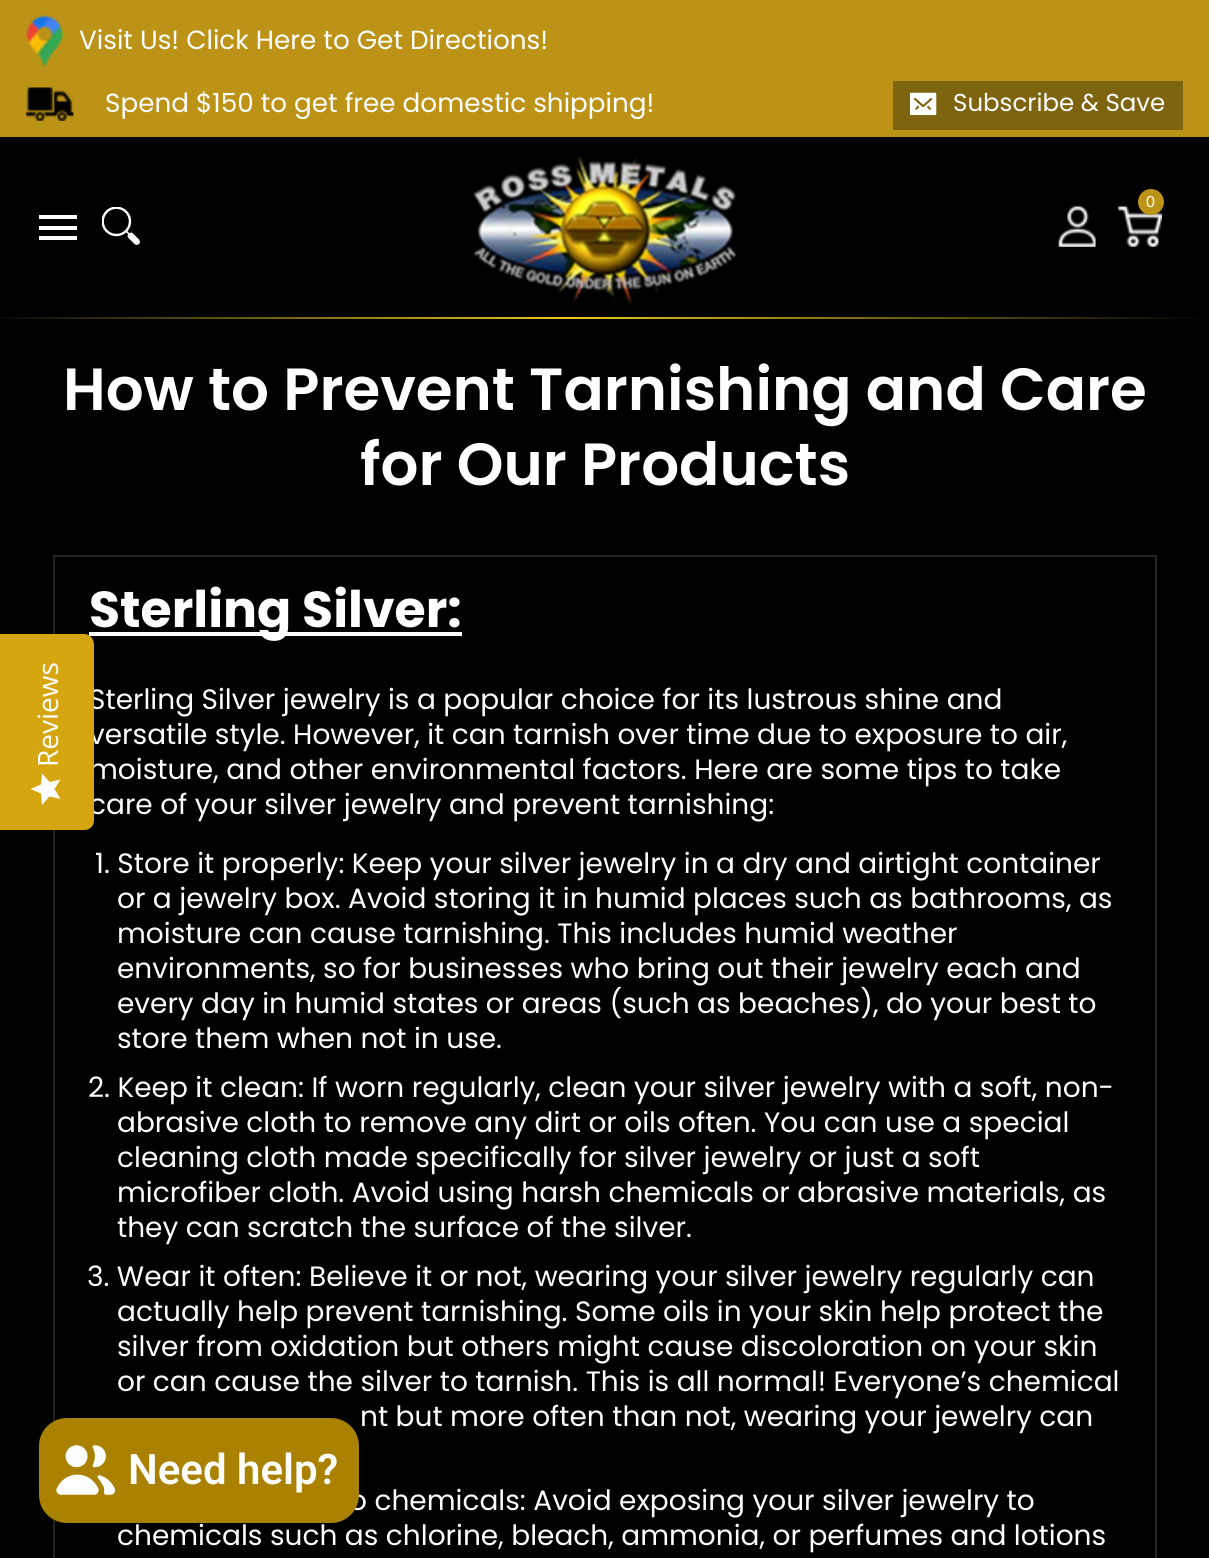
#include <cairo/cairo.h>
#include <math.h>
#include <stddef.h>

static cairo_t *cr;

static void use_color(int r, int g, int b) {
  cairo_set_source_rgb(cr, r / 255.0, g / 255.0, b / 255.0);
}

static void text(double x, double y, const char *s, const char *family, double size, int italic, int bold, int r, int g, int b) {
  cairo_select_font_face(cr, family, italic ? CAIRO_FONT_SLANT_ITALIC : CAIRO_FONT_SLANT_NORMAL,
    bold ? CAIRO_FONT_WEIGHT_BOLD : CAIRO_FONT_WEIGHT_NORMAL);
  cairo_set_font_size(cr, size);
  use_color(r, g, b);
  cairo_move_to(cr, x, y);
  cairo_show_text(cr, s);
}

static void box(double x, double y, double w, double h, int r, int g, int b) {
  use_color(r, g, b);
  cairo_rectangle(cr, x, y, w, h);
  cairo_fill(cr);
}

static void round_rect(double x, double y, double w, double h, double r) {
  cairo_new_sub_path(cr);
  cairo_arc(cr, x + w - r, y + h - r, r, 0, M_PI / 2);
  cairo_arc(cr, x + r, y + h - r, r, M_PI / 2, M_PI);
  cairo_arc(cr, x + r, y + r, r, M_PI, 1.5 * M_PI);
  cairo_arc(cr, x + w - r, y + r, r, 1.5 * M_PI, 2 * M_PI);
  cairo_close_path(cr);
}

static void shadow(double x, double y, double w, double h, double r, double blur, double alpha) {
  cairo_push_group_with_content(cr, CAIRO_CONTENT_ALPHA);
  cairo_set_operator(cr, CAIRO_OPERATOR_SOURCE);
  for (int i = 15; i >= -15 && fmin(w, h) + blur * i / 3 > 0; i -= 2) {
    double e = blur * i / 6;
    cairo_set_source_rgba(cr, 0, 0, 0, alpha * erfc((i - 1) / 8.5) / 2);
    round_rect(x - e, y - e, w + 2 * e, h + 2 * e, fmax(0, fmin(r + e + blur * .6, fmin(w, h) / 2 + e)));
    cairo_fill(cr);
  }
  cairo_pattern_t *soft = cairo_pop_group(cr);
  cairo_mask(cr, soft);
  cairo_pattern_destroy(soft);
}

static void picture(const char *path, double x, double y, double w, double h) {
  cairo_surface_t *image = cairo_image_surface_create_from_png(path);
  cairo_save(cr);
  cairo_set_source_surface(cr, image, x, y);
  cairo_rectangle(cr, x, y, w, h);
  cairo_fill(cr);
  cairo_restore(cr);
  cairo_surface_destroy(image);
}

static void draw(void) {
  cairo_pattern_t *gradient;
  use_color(0, 0, 0);
  cairo_paint(cr);
  box(0, 0, 1209, 137, 188, 147, 22);
  picture("img_01.png", 26, 15, 37, 52);
  picture("img_02.png", 26, 87, 48, 34);
  box(893, 81, 290, 49, 126, 100, 15);
  picture("img_03.png", 910, 92, 27, 24);
  picture("img_04.png", 473, 156, 264, 150);
  picture("img_05.png", 1118, 205, 44, 42);
  use_color(188, 147, 22);
  cairo_arc(cr, 1151, 202, 13, 0, 2 * M_PI);
  cairo_fill(cr);
  picture("img_06.png", 1058, 205, 38, 42);
  box(39, 215, 38, 4, 255, 255, 255);
  box(39, 236, 38, 4, 255, 255, 255);
  box(39, 226, 38, 4, 255, 255, 255);
  picture("img_07.png", 102, 207, 38, 38);
  gradient = cairo_pattern_create_linear(0, 318, 1209, 318);
  cairo_pattern_add_color_stop_rgba(gradient, 0, 0.035, 0.027, 0.02, 1);
  cairo_pattern_add_color_stop_rgba(gradient, 0.47, 0.925, 0.773, 0.145, 1);
  cairo_pattern_add_color_stop_rgba(gradient, 1, 0, 0, 0, 1);
  cairo_set_source(cr, gradient);
  cairo_pattern_destroy(gradient);
  cairo_rectangle(cr, 0, 317, 1209, 2);
  cairo_fill(cr);
  cairo_rectangle(cr, 54, 556, 1102, 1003);
  use_color(36, 36, 36);
  cairo_stroke(cr);
  box(89, 632, 373, 4, 255, 255, 255);
  use_color(0, 0, 0);
  shadow(39, 1418, 320, 105, 28, 4.5, 0.15);
  text(79, 49, "Visit Us! Click Here to Get Directions!", "Poppins", 26.25, 0, 0, 255, 255, 255);
  text(105, 112, "Spend $150 to get free domestic shipping!", "Poppins", 26.25, 0, 0, 255, 255, 255);
  text(953, 111, "Subscribe & Save", "Poppins", 24.5, 0, 0, 255, 255, 255);
  text(1146, 207, "0", "Liberation Sans", 16, 0, 0, 255, 255, 255);
  text(63, 410, "How to Prevent Tarnishing and Care", "Poppins SemiBold", 59.5, 0, 0, 255, 255, 255);
  text(360, 485, "for Our Products", "Poppins SemiBold", 59.5, 0, 0, 255, 255, 255);
  text(89, 627, "Sterling Silver:", "Poppins", 50.5, 0, 1, 255, 255, 255);
  text(89, 709, "Sterling Silver jewelry is a popular choice for its lustrous shine and", "Poppins", 28, 0, 0, 255, 255, 255);
  text(89, 744, "versatile style. However, it can tarnish over time due to exposure to air,", "Poppins", 28, 0, 0, 255, 255, 255);
  text(89, 779, "moisture, and other environmental factors. Here are some tips to take", "Poppins", 28, 0, 0, 255, 255, 255);
  text(89, 814, "care of your silver jewelry and prevent tarnishing:", "Poppins", 28, 0, 0, 255, 255, 255);
  use_color(214, 166, 17);
  cairo_new_path(cr);
  cairo_move_to(cr, 0, 830);
  cairo_line_to(cr, 0, 634);
  cairo_line_to(cr, 84, 634);
  cairo_curve_to(cr, 90, 634, 94, 639, 94, 645);
  cairo_line_to(cr, 94, 820);
  cairo_curve_to(cr, 94, 826, 90, 830, 84, 830);
  cairo_close_path(cr);
  cairo_fill(cr);
  gradient = cairo_pattern_create_linear(31, 805, 31, 773);
  cairo_pattern_add_color_stop_rgba(gradient, 1, 0.996, 0.996, 0.996, 1);
  cairo_pattern_add_color_stop_rgba(gradient, 1, 0.918, 0.918, 0.918, 1);
  cairo_set_source(cr, gradient);
  cairo_pattern_destroy(gradient);
  cairo_new_path(cr);
  cairo_move_to(cr, 54.5, 789);
  cairo_line_to(cr, 60.5, 779.5);
  cairo_line_to(cr, 49.5, 782);
  cairo_line_to(cr, 42, 773.5);
  cairo_line_to(cr, 41, 784.5);
  cairo_line_to(cr, 30.5, 789);
  cairo_line_to(cr, 41, 793.5);
  cairo_line_to(cr, 42, 805);
  cairo_line_to(cr, 49.5, 796.5);
  cairo_line_to(cr, 60.5, 799);
  cairo_close_path(cr);
  cairo_fill(cr);
  cairo_save(cr);
  cairo_translate(cr, 58, 767);
  cairo_rotate(cr, -90 * M_PI / 180);
  text(0, 0, "Reviews", "Open Sans", 28, 0, 0, 255, 255, 255);
  cairo_restore(cr);
  text(95, 873, "1. Store it properly: Keep your silver jewelry in a dry and airtight container", "Poppins", 28, 0, 0, 255, 255, 255);
  text(117, 908, "or a jewelry box. Avoid storing it in humid places such as bathrooms, as", "Poppins", 28, 0, 0, 255, 255, 255);
  text(117, 943, "moisture can cause tarnishing. This includes humid weather", "Poppins", 28, 0, 0, 255, 255, 255);
  text(117, 978, "environments, so for businesses who bring out their jewelry each and", "Poppins", 28, 0, 0, 255, 255, 255);
  text(117, 1013, "every day in humid states or areas (such as beaches), do your best to", "Poppins", 28, 0, 0, 255, 255, 255);
  text(117, 1048, "store them when not in use.", "Poppins", 28, 0, 0, 255, 255, 255);
  text(88, 1097, "2. Keep it clean: If worn regularly, clean your silver jewelry with a soft, non-", "Poppins", 28, 0, 0, 255, 255, 255);
  text(117, 1132, "abrasive cloth to remove any dirt or oils often. You can use a special", "Poppins", 28, 0, 0, 255, 255, 255);
  text(117, 1167, "cleaning cloth made specifically for silver jewelry or just a soft", "Poppins", 28, 0, 0, 255, 255, 255);
  text(117, 1202, "microfiber cloth. Avoid using harsh chemicals or abrasive materials, as", "Poppins", 28, 0, 0, 255, 255, 255);
  text(117, 1237, "they can scratch the surface of the silver.", "Poppins", 28, 0, 0, 255, 255, 255);
  text(87, 1286, "3. Wear it often: Believe it or not, wearing your silver jewelry regularly can", "Poppins", 28, 0, 0, 255, 255, 255);
  text(117, 1321, "actually help prevent tarnishing. Some oils in your skin help protect the", "Poppins", 28, 0, 0, 255, 255, 255);
  text(117, 1356, "silver from oxidation but others might cause discoloration on your skin", "Poppins", 28, 0, 0, 255, 255, 255);
  text(117, 1391, "or can cause the silver to tarnish. This is all normal! Everyone’s chemical", "Poppins", 28, 0, 0, 255, 255, 255);
  text(360, 1426, "nt but more often than not, wearing your jewelry can", "Poppins", 28, 0, 0, 255, 255, 255);
  text(349, 1510, "o chemicals: Avoid exposing your silver jewelry to", "Poppins", 28, 0, 0, 255, 255, 255);
  text(117, 1545, "chemicals such as chlorine, bleach, ammonia, or perfumes and lotions", "Poppins", 28, 0, 0, 255, 255, 255);
  use_color(170, 129, 0);
  round_rect(39, 1418, 320, 105, 28);
  cairo_fill(cr);
  picture("img_08.png", 56, 1445, 60, 50);
  text(128, 1484, "Need help?", "Roboto SemiBold", 42, 0, 0, 255, 255, 255);
}

int main(void) {
  cairo_surface_t *surface = cairo_image_surface_create(CAIRO_FORMAT_RGB24, 1209, 1558);
  cr = cairo_create(surface);
  cairo_font_options_t *options = cairo_font_options_create();
  cairo_font_options_set_hint_metrics(options, CAIRO_HINT_METRICS_OFF);
  cairo_font_options_set_hint_style(options, CAIRO_HINT_STYLE_NONE);
  cairo_set_font_options(cr, options);
  cairo_set_miter_limit(cr, 4);
  draw();
  cairo_surface_write_to_png(surface, "out.png");
  cairo_font_options_destroy(options);
  cairo_destroy(cr);
  cairo_surface_destroy(surface);
  return 0;
}
